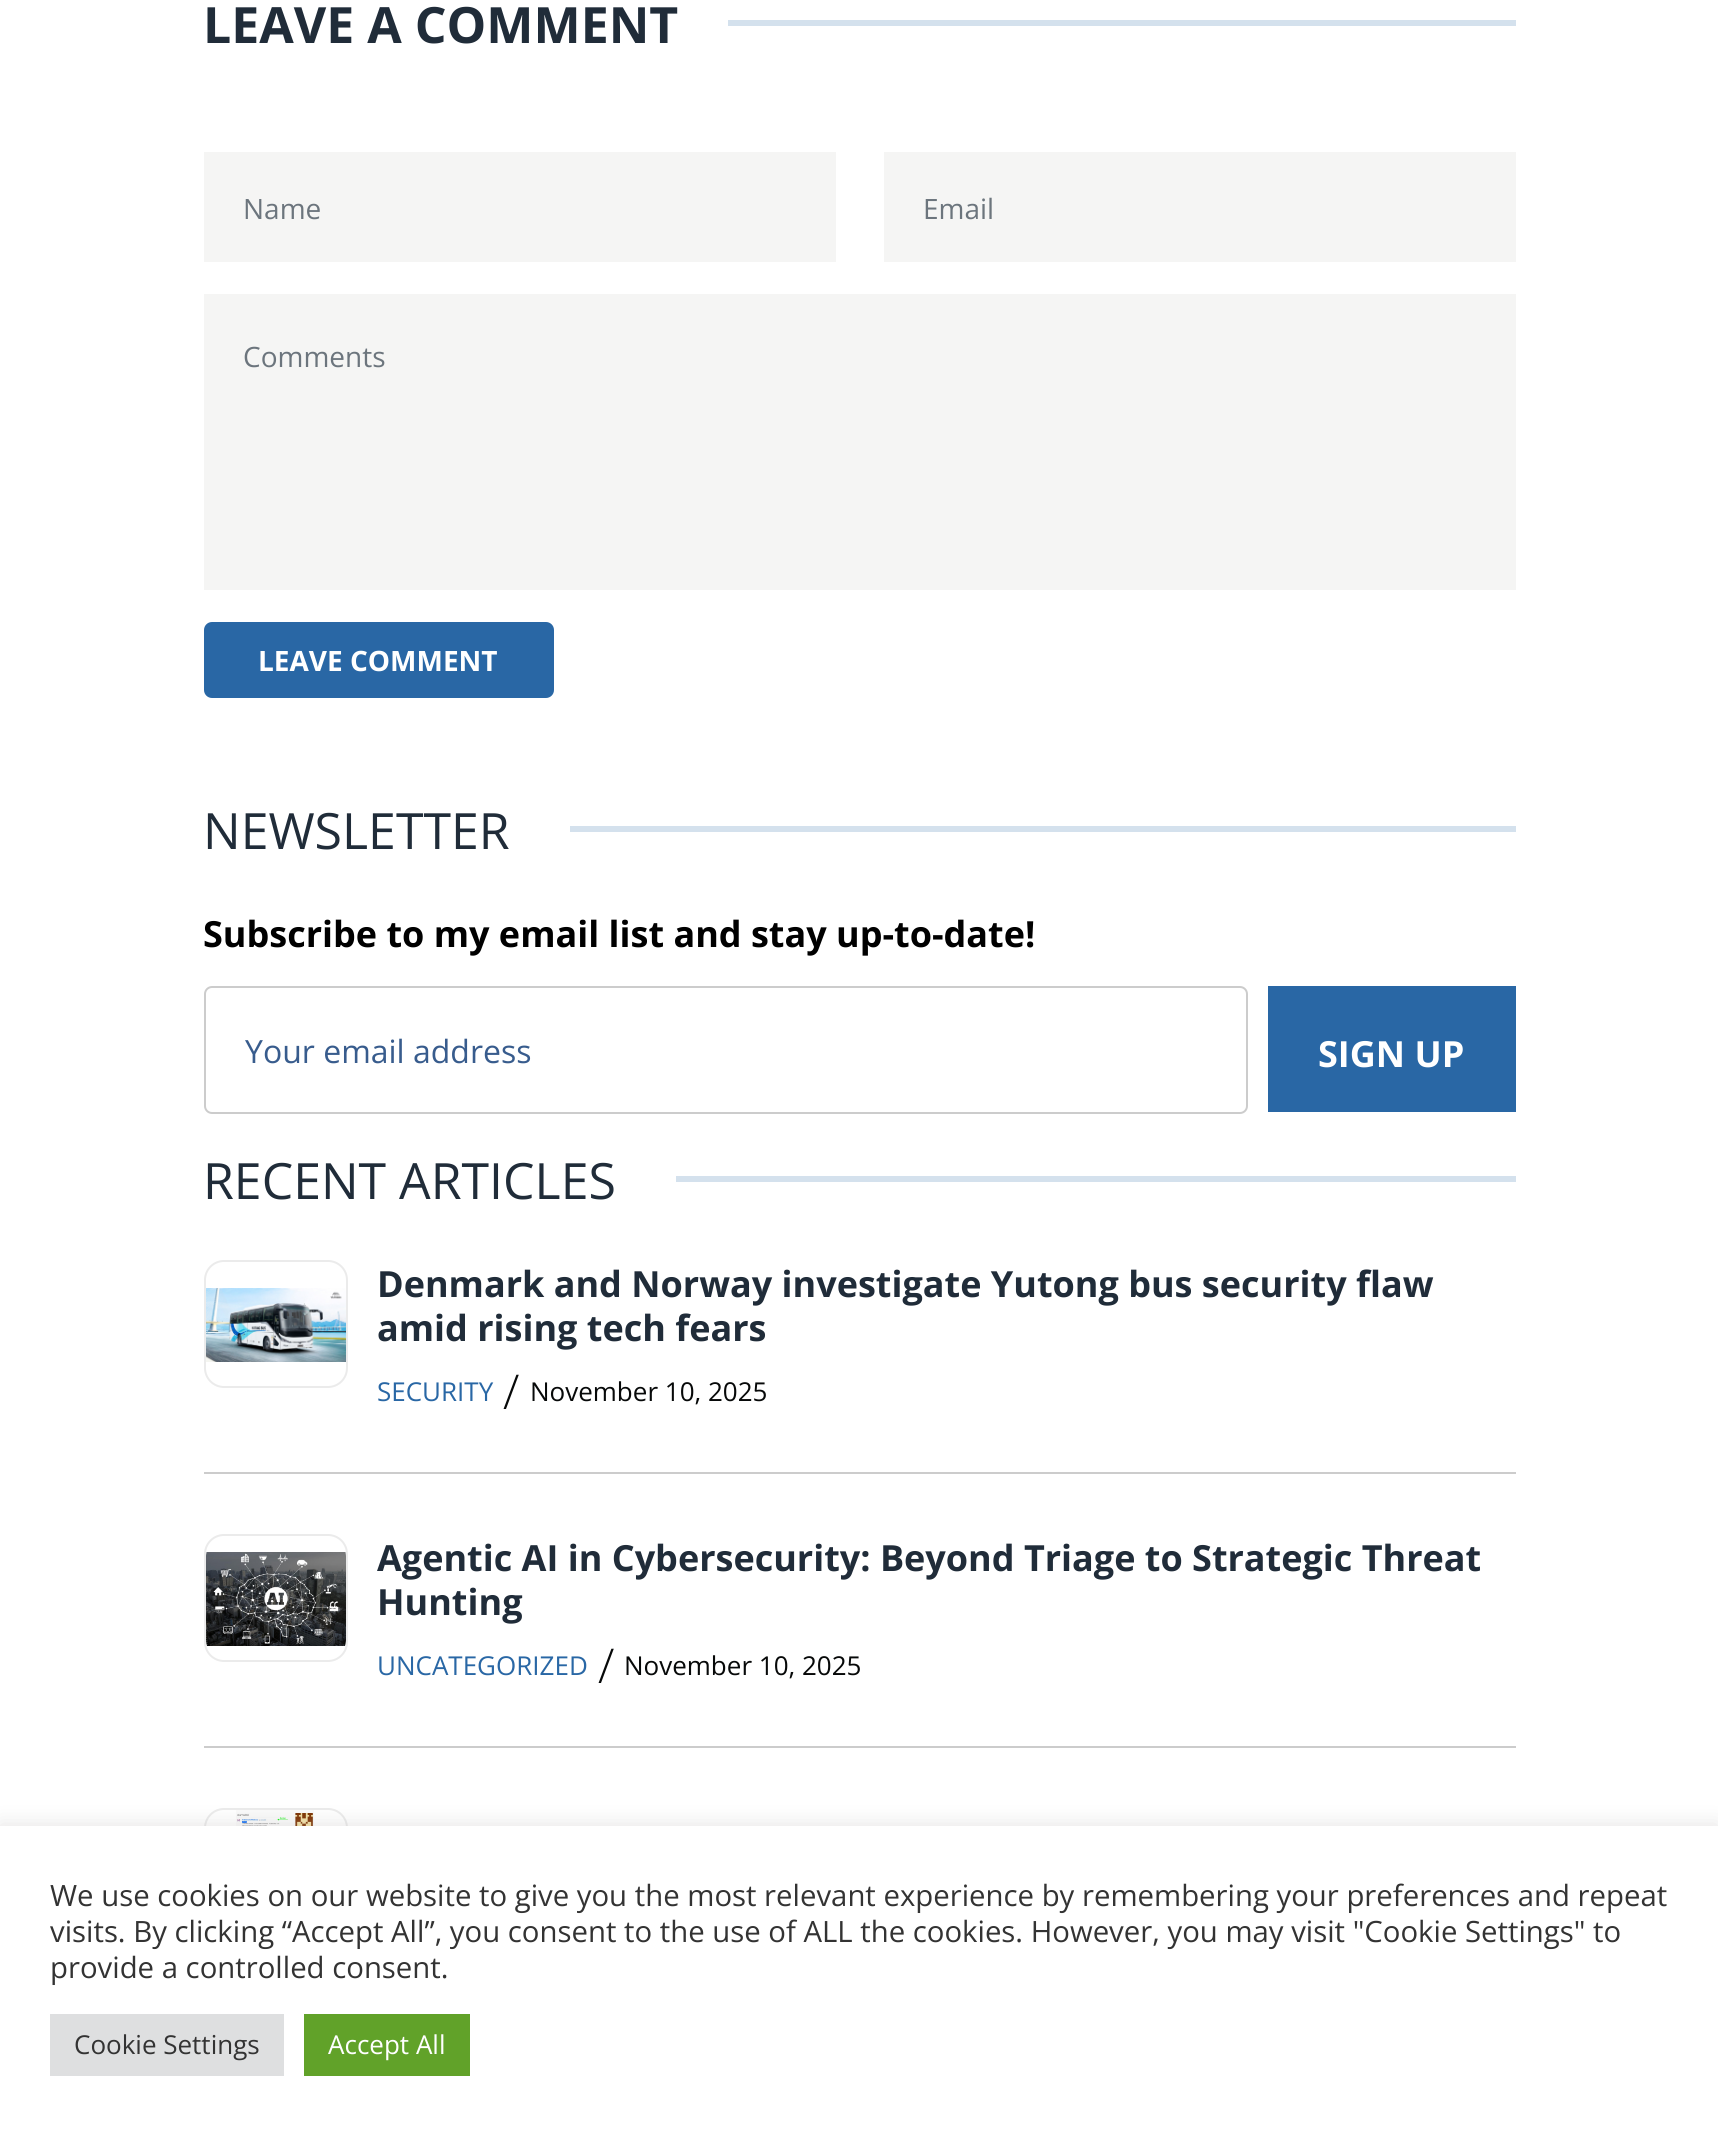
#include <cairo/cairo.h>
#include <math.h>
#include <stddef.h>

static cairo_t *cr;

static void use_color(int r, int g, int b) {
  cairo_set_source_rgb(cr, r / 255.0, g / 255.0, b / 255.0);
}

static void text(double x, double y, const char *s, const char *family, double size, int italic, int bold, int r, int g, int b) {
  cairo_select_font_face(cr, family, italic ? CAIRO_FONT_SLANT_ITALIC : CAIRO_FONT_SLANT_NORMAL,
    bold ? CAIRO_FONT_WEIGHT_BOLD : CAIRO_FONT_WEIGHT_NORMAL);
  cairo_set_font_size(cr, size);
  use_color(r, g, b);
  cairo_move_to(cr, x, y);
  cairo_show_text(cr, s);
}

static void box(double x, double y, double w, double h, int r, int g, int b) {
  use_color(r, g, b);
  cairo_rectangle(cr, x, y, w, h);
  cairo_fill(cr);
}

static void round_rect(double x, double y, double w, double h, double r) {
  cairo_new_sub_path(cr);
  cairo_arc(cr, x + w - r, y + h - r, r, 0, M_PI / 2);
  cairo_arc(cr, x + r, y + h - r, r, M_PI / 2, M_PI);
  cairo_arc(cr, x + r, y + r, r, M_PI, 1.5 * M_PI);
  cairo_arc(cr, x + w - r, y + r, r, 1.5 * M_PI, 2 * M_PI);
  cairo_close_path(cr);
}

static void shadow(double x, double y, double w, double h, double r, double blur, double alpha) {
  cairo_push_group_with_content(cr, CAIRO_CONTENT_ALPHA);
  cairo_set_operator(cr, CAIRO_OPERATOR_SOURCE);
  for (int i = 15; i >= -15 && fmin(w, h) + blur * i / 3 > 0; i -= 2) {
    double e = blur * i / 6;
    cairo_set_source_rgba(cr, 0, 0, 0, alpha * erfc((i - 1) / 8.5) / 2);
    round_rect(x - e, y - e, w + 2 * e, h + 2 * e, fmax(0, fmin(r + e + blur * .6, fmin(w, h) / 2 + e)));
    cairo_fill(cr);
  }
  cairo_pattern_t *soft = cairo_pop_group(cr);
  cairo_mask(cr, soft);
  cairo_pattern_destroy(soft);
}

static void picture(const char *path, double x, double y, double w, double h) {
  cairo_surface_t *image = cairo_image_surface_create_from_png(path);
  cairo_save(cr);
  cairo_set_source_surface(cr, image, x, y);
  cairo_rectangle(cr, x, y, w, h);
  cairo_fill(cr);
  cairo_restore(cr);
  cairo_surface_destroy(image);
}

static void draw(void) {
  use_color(255, 255, 255);
  cairo_paint(cr);
  box(728, 20, 788, 6, 212, 225, 237);
  box(204, 152, 632, 110, 245, 245, 244);
  box(884, 152, 632, 110, 245, 245, 244);
  box(204, 294, 1312, 296, 245, 245, 244);
  use_color(41, 103, 165);
  round_rect(204, 622, 350, 76, 8);
  cairo_fill(cr);
  box(570, 826, 946, 6, 212, 225, 237);
  round_rect(205, 987, 1042, 126, 7);
  use_color(204, 204, 204);
  cairo_stroke(cr);
  box(1268, 986, 248, 126, 41, 103, 165);
  box(676, 1176, 840, 6, 212, 225, 237);
  box(204, 1472, 1312, 2, 204, 204, 204);
  round_rect(205, 1261, 142, 126, 19);
  use_color(235, 235, 235);
  cairo_stroke(cr);
  picture("img_01.png", 206, 1288, 140, 74);
  box(204, 1746, 1312, 2, 204, 204, 204);
  round_rect(205, 1535, 142, 126, 19);
  use_color(235, 235, 235);
  cairo_stroke(cr);
  picture("img_02.png", 206, 1552, 140, 94);
  round_rect(205, 1809, 142, 126, 19);
  cairo_stroke(cr);
  picture("img_03.png", 236, 1810, 78, 16);
  use_color(172, 171, 171);
  shadow(0, 1824, 1718, 310, 0, 10, 0.3);
  box(0, 1826, 1718, 309, 255, 255, 255);
  box(50, 2014, 234, 62, 222, 223, 224);
  box(304, 2014, 166, 62, 97, 162, 41);
  text(203, 43, "LEAVE A COMMENT", "Open Sans", 50, 0, 1, 32, 44, 57);
  text(243, 219, "Name", "Open Sans", 28, 0, 0, 108, 117, 125);
  text(923, 219, "Email", "Open Sans", 28, 0, 0, 108, 117, 125);
  text(243, 367, "Comments", "Open Sans", 28, 0, 0, 108, 117, 125);
  text(258, 671, "LEAVE COMMENT", "Open Sans", 28, 0, 1, 255, 255, 255);
  text(203, 849, "NEWSLETTER", "Open Sans", 50, 0, 0, 32, 44, 57);
  text(203, 947, "Subscribe to my email list and stay up-to-date!", "Open Sans", 36, 0, 1, 0, 0, 0);
  text(245, 1063, "Your email address", "Open Sans", 32, 0, 0, 56, 92, 141);
  text(1318, 1067, "SIGN UP", "Open Sans", 36, 0, 1, 255, 255, 255);
  text(203, 1199, "RECENT ARTICLES", "Open Sans", 50, 0, 0, 32, 44, 57);
  text(377, 1297, "Denmark and Norway investigate Yutong bus security flaw", "Open Sans", 36, 0, 1, 32, 44, 57);
  text(377, 1341, "amid rising tech fears", "Open Sans", 36, 0, 1, 32, 44, 57);
  text(377, 1401, "SECURITY", "Open Sans", 26, 0, 0, 41, 103, 165);
  text(503, 1409, "/", "Open Sans Light", 48, 0, 0, 7, 9, 9);
  text(530, 1401, "November 10, 2025", "Open Sans", 26, 0, 0, 7, 9, 9);
  text(377, 1571, "Agentic AI in Cybersecurity: Beyond Triage to Strategic Threat", "Open Sans", 36, 0, 1, 32, 44, 57);
  text(377, 1615, "Hunting", "Open Sans", 36, 0, 1, 32, 44, 57);
  text(377, 1675, "UNCATEGORIZED", "Open Sans", 26, 0, 0, 41, 103, 165);
  text(598, 1683, "/", "Open Sans Light", 48, 0, 0, 7, 9, 9);
  text(624, 1675, "November 10, 2025", "Open Sans", 26, 0, 0, 7, 9, 9);
  text(50, 1906, "We use cookies on our website to give you the most relevant experience by remembering your preferences and repeat", "Open Sans", 29.33, 0, 0, 51, 51, 51);
  text(50, 1942, "visits. By clicking “Accept All”, you consent to the use of ALL the cookies. However, you may visit \"Cookie Settings\" to", "Open Sans", 29.33, 0, 0, 51, 51, 51);
  text(50, 1978, "provide a controlled consent.", "Open Sans", 29.33, 0, 0, 51, 51, 51);
  text(74, 2054, "Cookie Settings", "Open Sans", 26, 0, 0, 51, 51, 51);
  text(328, 2054, "Accept All", "Open Sans", 26, 0, 0, 255, 255, 255);
}

int main(void) {
  cairo_surface_t *surface = cairo_image_surface_create(CAIRO_FORMAT_RGB24, 1718, 2135);
  cr = cairo_create(surface);
  cairo_font_options_t *options = cairo_font_options_create();
  cairo_font_options_set_hint_metrics(options, CAIRO_HINT_METRICS_OFF);
  cairo_font_options_set_hint_style(options, CAIRO_HINT_STYLE_NONE);
  cairo_set_font_options(cr, options);
  cairo_set_miter_limit(cr, 4);
  draw();
  cairo_surface_write_to_png(surface, "out.png");
  cairo_font_options_destroy(options);
  cairo_destroy(cr);
  cairo_surface_destroy(surface);
  return 0;
}
